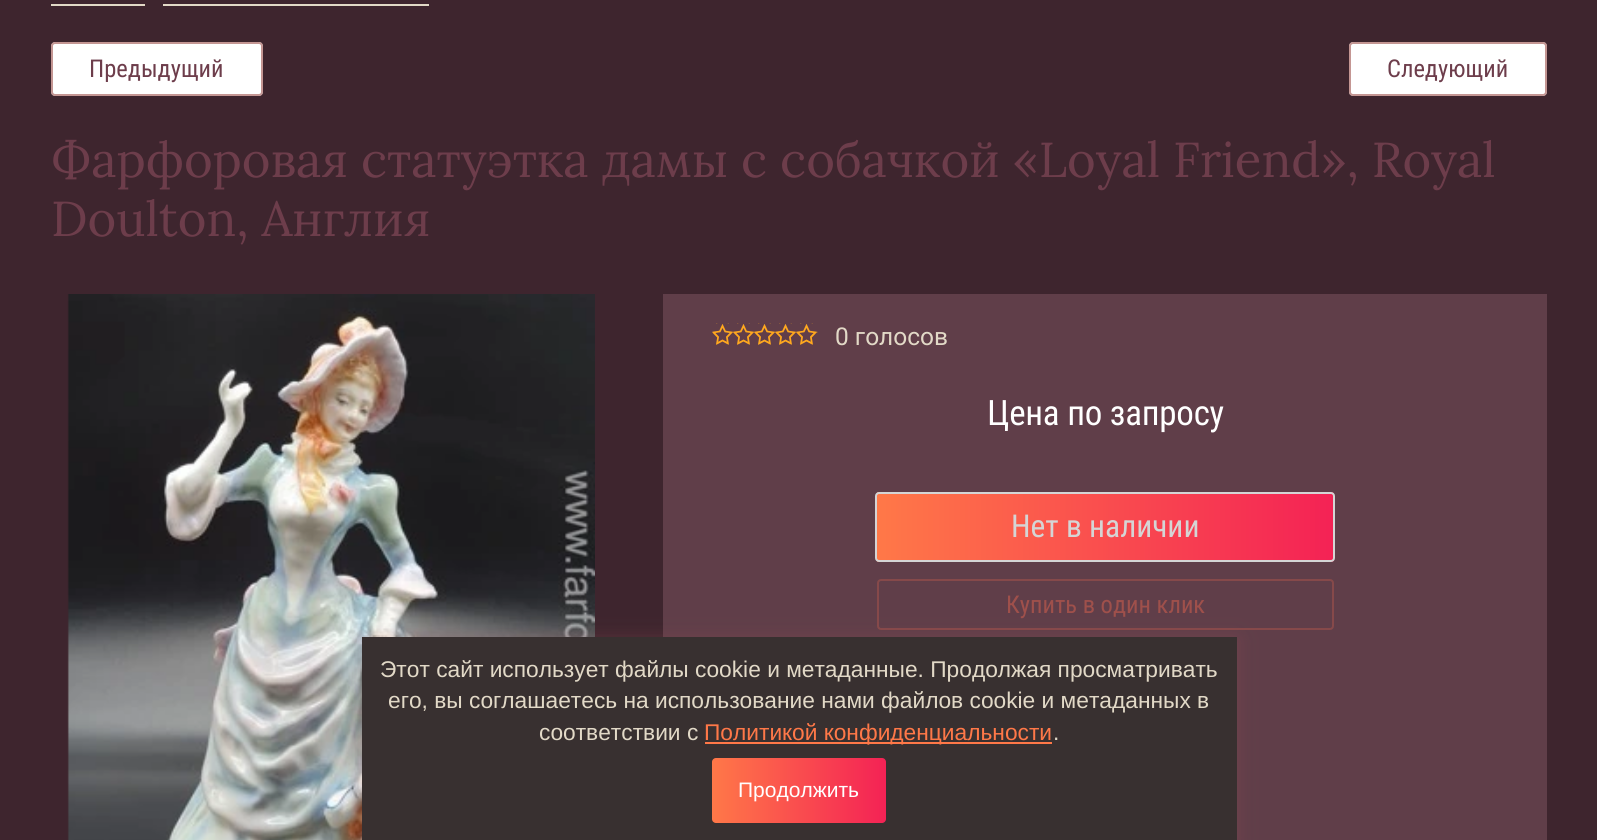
#include <cairo/cairo.h>
#include <math.h>
#include <stddef.h>

static cairo_t *cr;

static void use_color(int r, int g, int b) {
  cairo_set_source_rgb(cr, r / 255.0, g / 255.0, b / 255.0);
}

static void text(double x, double y, const char *s, const char *family, double size, int italic, int bold, int r, int g, int b) {
  cairo_select_font_face(cr, family, italic ? CAIRO_FONT_SLANT_ITALIC : CAIRO_FONT_SLANT_NORMAL,
    bold ? CAIRO_FONT_WEIGHT_BOLD : CAIRO_FONT_WEIGHT_NORMAL);
  cairo_set_font_size(cr, size);
  use_color(r, g, b);
  cairo_move_to(cr, x, y);
  cairo_show_text(cr, s);
}

static void spaced_text(double x, double y, const char *s, double letter, double word) {
  cairo_move_to(cr, x, y);
  while (*s) {
    char ch[5] = {0};
    int n = 0;
    do ch[n++] = *s++; while ((*s & 0xC0) == 0x80);
    cairo_show_text(cr, ch);
    cairo_rel_move_to(cr, letter + word * (*ch == ' '), 0);
  }
}

static void box(double x, double y, double w, double h, int r, int g, int b) {
  use_color(r, g, b);
  cairo_rectangle(cr, x, y, w, h);
  cairo_fill(cr);
}

static void round_rect(double x, double y, double w, double h, double r) {
  cairo_new_sub_path(cr);
  cairo_arc(cr, x + w - r, y + h - r, r, 0, M_PI / 2);
  cairo_arc(cr, x + r, y + h - r, r, M_PI / 2, M_PI);
  cairo_arc(cr, x + r, y + r, r, M_PI, 1.5 * M_PI);
  cairo_arc(cr, x + w - r, y + r, r, 1.5 * M_PI, 2 * M_PI);
  cairo_close_path(cr);
}

static void shadow(double x, double y, double w, double h, double r, double blur, double alpha) {
  cairo_push_group_with_content(cr, CAIRO_CONTENT_ALPHA);
  cairo_set_operator(cr, CAIRO_OPERATOR_SOURCE);
  for (int i = 15; i >= -15 && fmin(w, h) + blur * i / 3 > 0; i -= 2) {
    double e = blur * i / 6;
    cairo_set_source_rgba(cr, 0, 0, 0, alpha * erfc((i - 1) / 8.5) / 2);
    round_rect(x - e, y - e, w + 2 * e, h + 2 * e, fmax(0, fmin(r + e + blur * .6, fmin(w, h) / 2 + e)));
    cairo_fill(cr);
  }
  cairo_pattern_t *soft = cairo_pop_group(cr);
  cairo_mask(cr, soft);
  cairo_pattern_destroy(soft);
}

static void picture(const char *path, double x, double y, double w, double h) {
  cairo_surface_t *image = cairo_image_surface_create_from_png(path);
  cairo_save(cr);
  cairo_set_source_surface(cr, image, x, y);
  cairo_rectangle(cr, x, y, w, h);
  cairo_fill(cr);
  cairo_restore(cr);
  cairo_surface_destroy(image);
}

static void draw(void) {
  cairo_pattern_t *gradient;
  use_color(62, 37, 46);
  cairo_paint(cr);
  box(51, 4, 94, 2, 226, 217, 199);
  box(163, 4, 266, 2, 226, 217, 199);
  use_color(255, 255, 255);
  round_rect(51, 42, 212, 54, 4);
  cairo_fill(cr);
  round_rect(52, 43, 210, 52, 3);
  cairo_set_source_rgba(cr, 0.612, 0.314, 0.294, 0.6);
  cairo_stroke(cr);
  use_color(255, 255, 255);
  round_rect(1349, 42, 198, 54, 4);
  cairo_fill(cr);
  round_rect(1350, 43, 196, 52, 3);
  cairo_set_source_rgba(cr, 0.612, 0.314, 0.294, 0.6);
  cairo_stroke(cr);
  picture("img_01.png", 67, 294, 528, 546);
  box(663, 294, 884, 546, 96, 62, 73);
  picture("img_02.png", 712, 323, 106, 22);
  cairo_save(cr);
  round_rect(875, 492, 460, 70, 4);
  cairo_clip(cr);
  gradient = cairo_pattern_create_linear(877, 527, 1334, 527);
  cairo_pattern_add_color_stop_rgba(gradient, 0, 1, 0.471, 0.282, 1);
  cairo_pattern_add_color_stop_rgba(gradient, 1, 0.957, 0.133, 0.333, 1);
  cairo_set_source(cr, gradient);
  cairo_pattern_destroy(gradient);
  cairo_rectangle(cr, 877, 492, 457, 70);
  cairo_fill(cr);
  cairo_restore(cr);
  round_rect(876, 493, 458, 68, 3);
  use_color(213, 213, 213);
  cairo_stroke(cr);
  round_rect(878, 580, 455, 49, 3);
  use_color(134, 73, 74);
  cairo_stroke(cr);
  use_color(142, 73, 85);
  shadow(362, 639, 875, 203, 0, 9, 0.4);
  box(362, 637, 875, 203, 56, 48, 48);
  box(705, 742, 347, 2, 255, 120, 72);
  gradient = cairo_pattern_create_linear(712, 790, 886, 790);
  cairo_pattern_add_color_stop_rgba(gradient, 0, 1, 0.471, 0.282, 1);
  cairo_pattern_add_color_stop_rgba(gradient, 1, 0.957, 0.133, 0.333, 1);
  cairo_set_source(cr, gradient);
  cairo_pattern_destroy(gradient);
  round_rect(712, 758, 174, 65, 4);
  cairo_fill(cr);
  text(89, 77, "Предыдущий", "Roboto Condensed", 24.5, 0, 0, 109, 61, 75);
  text(1387, 77, "Следующий", "Roboto Condensed", 24.5, 0, 0, 109, 61, 75);
  text(51, 177, "Фарфоровая статуэтка дамы с собачкой «Loyal Friend», Royal", "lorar", 49, 0, 0, 109, 61, 75);
  text(51, 236, "Doulton, Англия", "lorar", 49, 0, 0, 109, 61, 75);
  text(835, 345, "0 голосов", "Roboto", 24.5, 0, 0, 226, 217, 199);
  cairo_select_font_face(cr, "Roboto Condensed", CAIRO_FONT_SLANT_NORMAL, CAIRO_FONT_WEIGHT_NORMAL);
  cairo_set_font_size(cr, 35);
  use_color(255, 255, 255);
  spaced_text(987, 425, "Цена по запросу", -0.25, 0);
  text(1011, 537, "Нет в наличии", "Roboto Condensed", 31.5, 0, 0, 213, 213, 213);
  text(1006, 613, "Купить в один клик", "Roboto Condensed", 24.5, 0, 0, 159, 80, 75);
  text(380, 677, "Этот сайт использует файлы cookie и метаданные. Продолжая просматривать", "Liberation Sans", 22.75, 0, 0, 226, 217, 199);
  text(388, 708, "его, вы соглашаетесь на использование нами файлов cookie и метаданных в", "Liberation Sans", 22.75, 0, 0, 226, 217, 199);
  text(539, 740, "соответствии с", "Liberation Sans", 22.75, 0, 0, 226, 217, 199);
  text(704, 740, "Политикой конфиденциальности", "Liberation Sans", 22.75, 0, 0, 255, 120, 72);
  text(1053, 740, ".", "Liberation Sans", 22.75, 0, 0, 226, 217, 199);
  text(738, 797, "Продолжить", "Liberation Sans", 21, 0, 0, 255, 255, 255);
}

int main(void) {
  cairo_surface_t *surface = cairo_image_surface_create(CAIRO_FORMAT_RGB24, 1597, 840);
  cr = cairo_create(surface);
  cairo_font_options_t *options = cairo_font_options_create();
  cairo_font_options_set_hint_metrics(options, CAIRO_HINT_METRICS_OFF);
  cairo_font_options_set_hint_style(options, CAIRO_HINT_STYLE_NONE);
  cairo_set_font_options(cr, options);
  cairo_set_miter_limit(cr, 4);
  draw();
  cairo_surface_write_to_png(surface, "out.png");
  cairo_font_options_destroy(options);
  cairo_destroy(cr);
  cairo_surface_destroy(surface);
  return 0;
}
